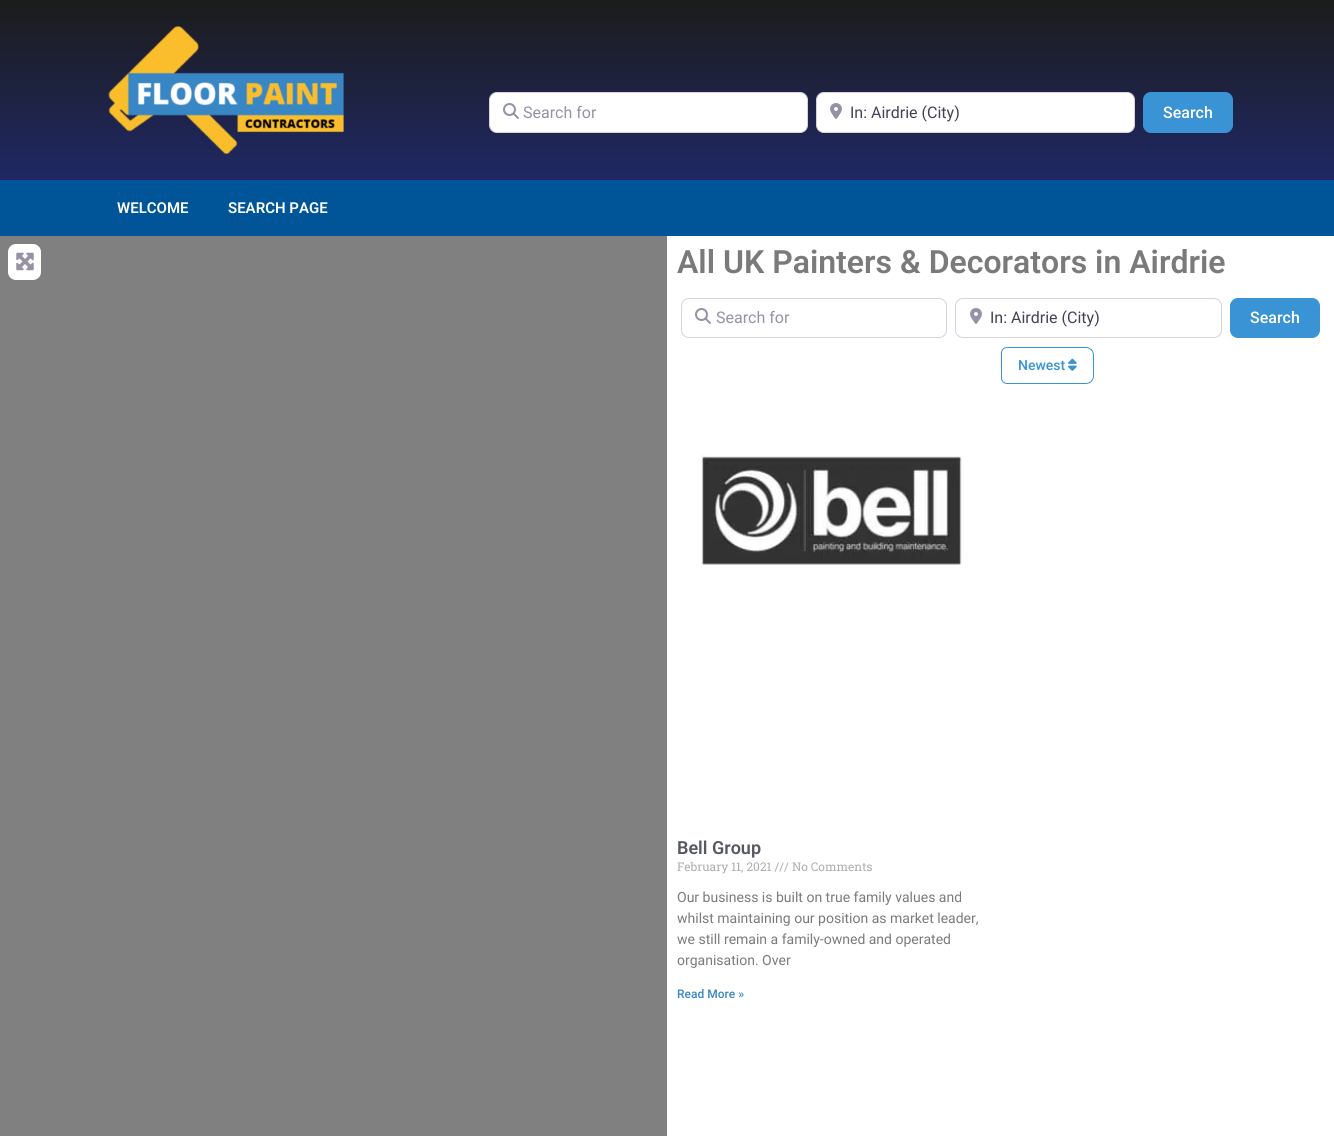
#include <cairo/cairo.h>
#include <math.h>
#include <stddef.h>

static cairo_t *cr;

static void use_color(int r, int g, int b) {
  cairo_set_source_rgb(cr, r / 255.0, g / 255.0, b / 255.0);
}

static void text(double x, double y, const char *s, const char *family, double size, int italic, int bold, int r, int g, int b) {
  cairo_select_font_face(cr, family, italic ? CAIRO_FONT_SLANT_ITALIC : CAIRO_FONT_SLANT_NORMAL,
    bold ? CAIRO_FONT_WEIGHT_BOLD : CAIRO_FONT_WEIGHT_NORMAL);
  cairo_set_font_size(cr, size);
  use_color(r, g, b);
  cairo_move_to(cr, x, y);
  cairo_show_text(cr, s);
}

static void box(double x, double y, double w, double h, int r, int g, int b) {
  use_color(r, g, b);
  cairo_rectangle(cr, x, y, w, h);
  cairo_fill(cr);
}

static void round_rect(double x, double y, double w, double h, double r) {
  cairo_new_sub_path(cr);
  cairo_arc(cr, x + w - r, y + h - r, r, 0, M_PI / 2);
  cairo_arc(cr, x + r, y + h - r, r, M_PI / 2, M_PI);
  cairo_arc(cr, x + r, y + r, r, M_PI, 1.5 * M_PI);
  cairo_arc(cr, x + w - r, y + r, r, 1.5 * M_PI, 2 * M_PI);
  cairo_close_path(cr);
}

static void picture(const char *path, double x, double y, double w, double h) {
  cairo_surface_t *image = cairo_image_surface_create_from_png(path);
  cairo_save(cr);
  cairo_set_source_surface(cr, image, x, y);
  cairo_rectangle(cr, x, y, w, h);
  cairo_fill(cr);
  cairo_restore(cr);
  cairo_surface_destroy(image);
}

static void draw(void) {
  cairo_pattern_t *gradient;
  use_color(255, 255, 255);
  cairo_paint(cr);
  gradient = cairo_pattern_create_linear(667, 0, 667, 180);
  cairo_pattern_add_color_stop_rgba(gradient, 0, 0.11, 0.11, 0.11, 1);
  cairo_pattern_add_color_stop_rgba(gradient, 1, 0.122, 0.157, 0.392, 1);
  cairo_set_source(cr, gradient);
  cairo_pattern_destroy(gradient);
  cairo_rectangle(cr, 0, 0, 1334, 180);
  cairo_fill(cr);
  picture("img_01.png", 108, 26, 236, 129);
  use_color(255, 255, 255);
  round_rect(489.5, 92.5, 318, 40, 7.5);
  cairo_fill_preserve(cr);
  use_color(213, 210, 220);
  cairo_set_line_width(cr, 1);
  cairo_stroke(cr);
  picture("img_02.png", 503, 103, 16, 16);
  use_color(255, 255, 255);
  round_rect(816.5, 92.5, 318, 40, 7.5);
  cairo_fill_preserve(cr);
  use_color(213, 210, 220);
  cairo_stroke(cr);
  picture("img_03.png", 830, 103, 12, 16);
  use_color(57, 147, 213);
  round_rect(1143.5, 92.5, 89, 40, 7.5);
  cairo_fill_preserve(cr);
  cairo_stroke(cr);
  box(0, 180, 1334, 56, 0, 85, 153);
  box(0, 236, 667, 900, 128, 128, 128);
  use_color(255, 255, 255);
  round_rect(8, 244, 33, 36, 8);
  cairo_fill(cr);
  picture("img_04.png", 16, 252, 18, 19);
  round_rect(681.5, 298.5, 265, 39, 7.5);
  use_color(213, 210, 220);
  cairo_stroke(cr);
  picture("img_02.png", 695, 308, 16, 16);
  round_rect(955.5, 298.5, 266, 39, 7.5);
  cairo_stroke(cr);
  picture("img_03.png", 970, 308, 12, 16);
  use_color(57, 147, 213);
  round_rect(1230.5, 298.5, 89, 39, 7.5);
  cairo_fill_preserve(cr);
  cairo_stroke(cr);
  cairo_new_path(cr);
  cairo_move_to(cr, 1007, 347.5);
  cairo_line_to(cr, 1086, 347.5);
  cairo_curve_to(cr, 1090, 347.5, 1093.5, 351, 1093.5, 355);
  cairo_line_to(cr, 1093.5, 376);
  cairo_curve_to(cr, 1093.5, 380, 1090, 383.5, 1086, 383.5);
  cairo_line_to(cr, 1007, 383.5);
  cairo_curve_to(cr, 1004, 383.5, 1001.5, 381, 1001.5, 378);
  cairo_line_to(cr, 1001.5, 353);
  cairo_curve_to(cr, 1001.5, 350, 1004, 347.5, 1007, 347.5);
  cairo_close_path(cr);
  cairo_stroke(cr);
  picture("img_05.png", 1068, 358, 9, 13);
  picture("img_06.png", 701, 454, 261, 111);
  text(523, 118, "Search for", "Roboto", 16, 0, 0, 150, 145, 164);
  text(850, 118, "In: Airdrie (City)", "Roboto", 16, 0, 0, 69, 64, 86);
  text(1163, 118, "Search", "Roboto Medium", 16, 0, 0, 255, 255, 255);
  text(117, 213, "WELCOME", "Roboto SemiBold", 15, 0, 0, 255, 255, 255);
  text(228, 213, "SEARCH PAGE", "Roboto SemiBold", 15, 0, 0, 255, 255, 255);
  text(677, 273, "All UK Painters & Decorators in Airdrie", "Roboto SemiBold", 32, 0, 0, 122, 122, 122);
  text(716, 323, "Search for", "Roboto", 16, 0, 0, 150, 145, 164);
  text(990, 323, "In: Airdrie (City)", "Roboto", 16, 0, 0, 69, 64, 86);
  text(1250, 323, "Search", "Roboto Medium", 16, 0, 0, 255, 255, 255);
  text(1018, 370, "Newest", "Roboto Medium", 14, 0, 0, 57, 147, 213);
  text(677, 854, "Bell Group", "Roboto SemiBold", 18, 0, 0, 84, 89, 95);
  text(677, 871, "February 11, 2021 /// No Comments", "Roboto Slab", 12, 0, 0, 173, 173, 173);
  text(677, 902, "Our business is built on true family values and", "Roboto", 14, 0, 0, 122, 122, 122);
  text(677, 923, "whilst maintaining our position as market leader,", "Roboto", 14, 0, 0, 122, 122, 122);
  text(677, 944, "we still remain a family-owned and operated", "Roboto", 14, 0, 0, 122, 122, 122);
  text(677, 965, "organisation. Over", "Roboto", 14, 0, 0, 122, 122, 122);
  text(677, 998, "Read More »", "Roboto Medium", 12, 0, 0, 56, 134, 196);
}

int main(void) {
  cairo_surface_t *surface = cairo_image_surface_create(CAIRO_FORMAT_RGB24, 1334, 1136);
  cr = cairo_create(surface);
  cairo_font_options_t *options = cairo_font_options_create();
  cairo_font_options_set_hint_metrics(options, CAIRO_HINT_METRICS_OFF);
  cairo_font_options_set_hint_style(options, CAIRO_HINT_STYLE_NONE);
  cairo_set_font_options(cr, options);
  cairo_set_miter_limit(cr, 4);
  draw();
  cairo_surface_write_to_png(surface, "out.png");
  cairo_font_options_destroy(options);
  cairo_destroy(cr);
  cairo_surface_destroy(surface);
  return 0;
}
